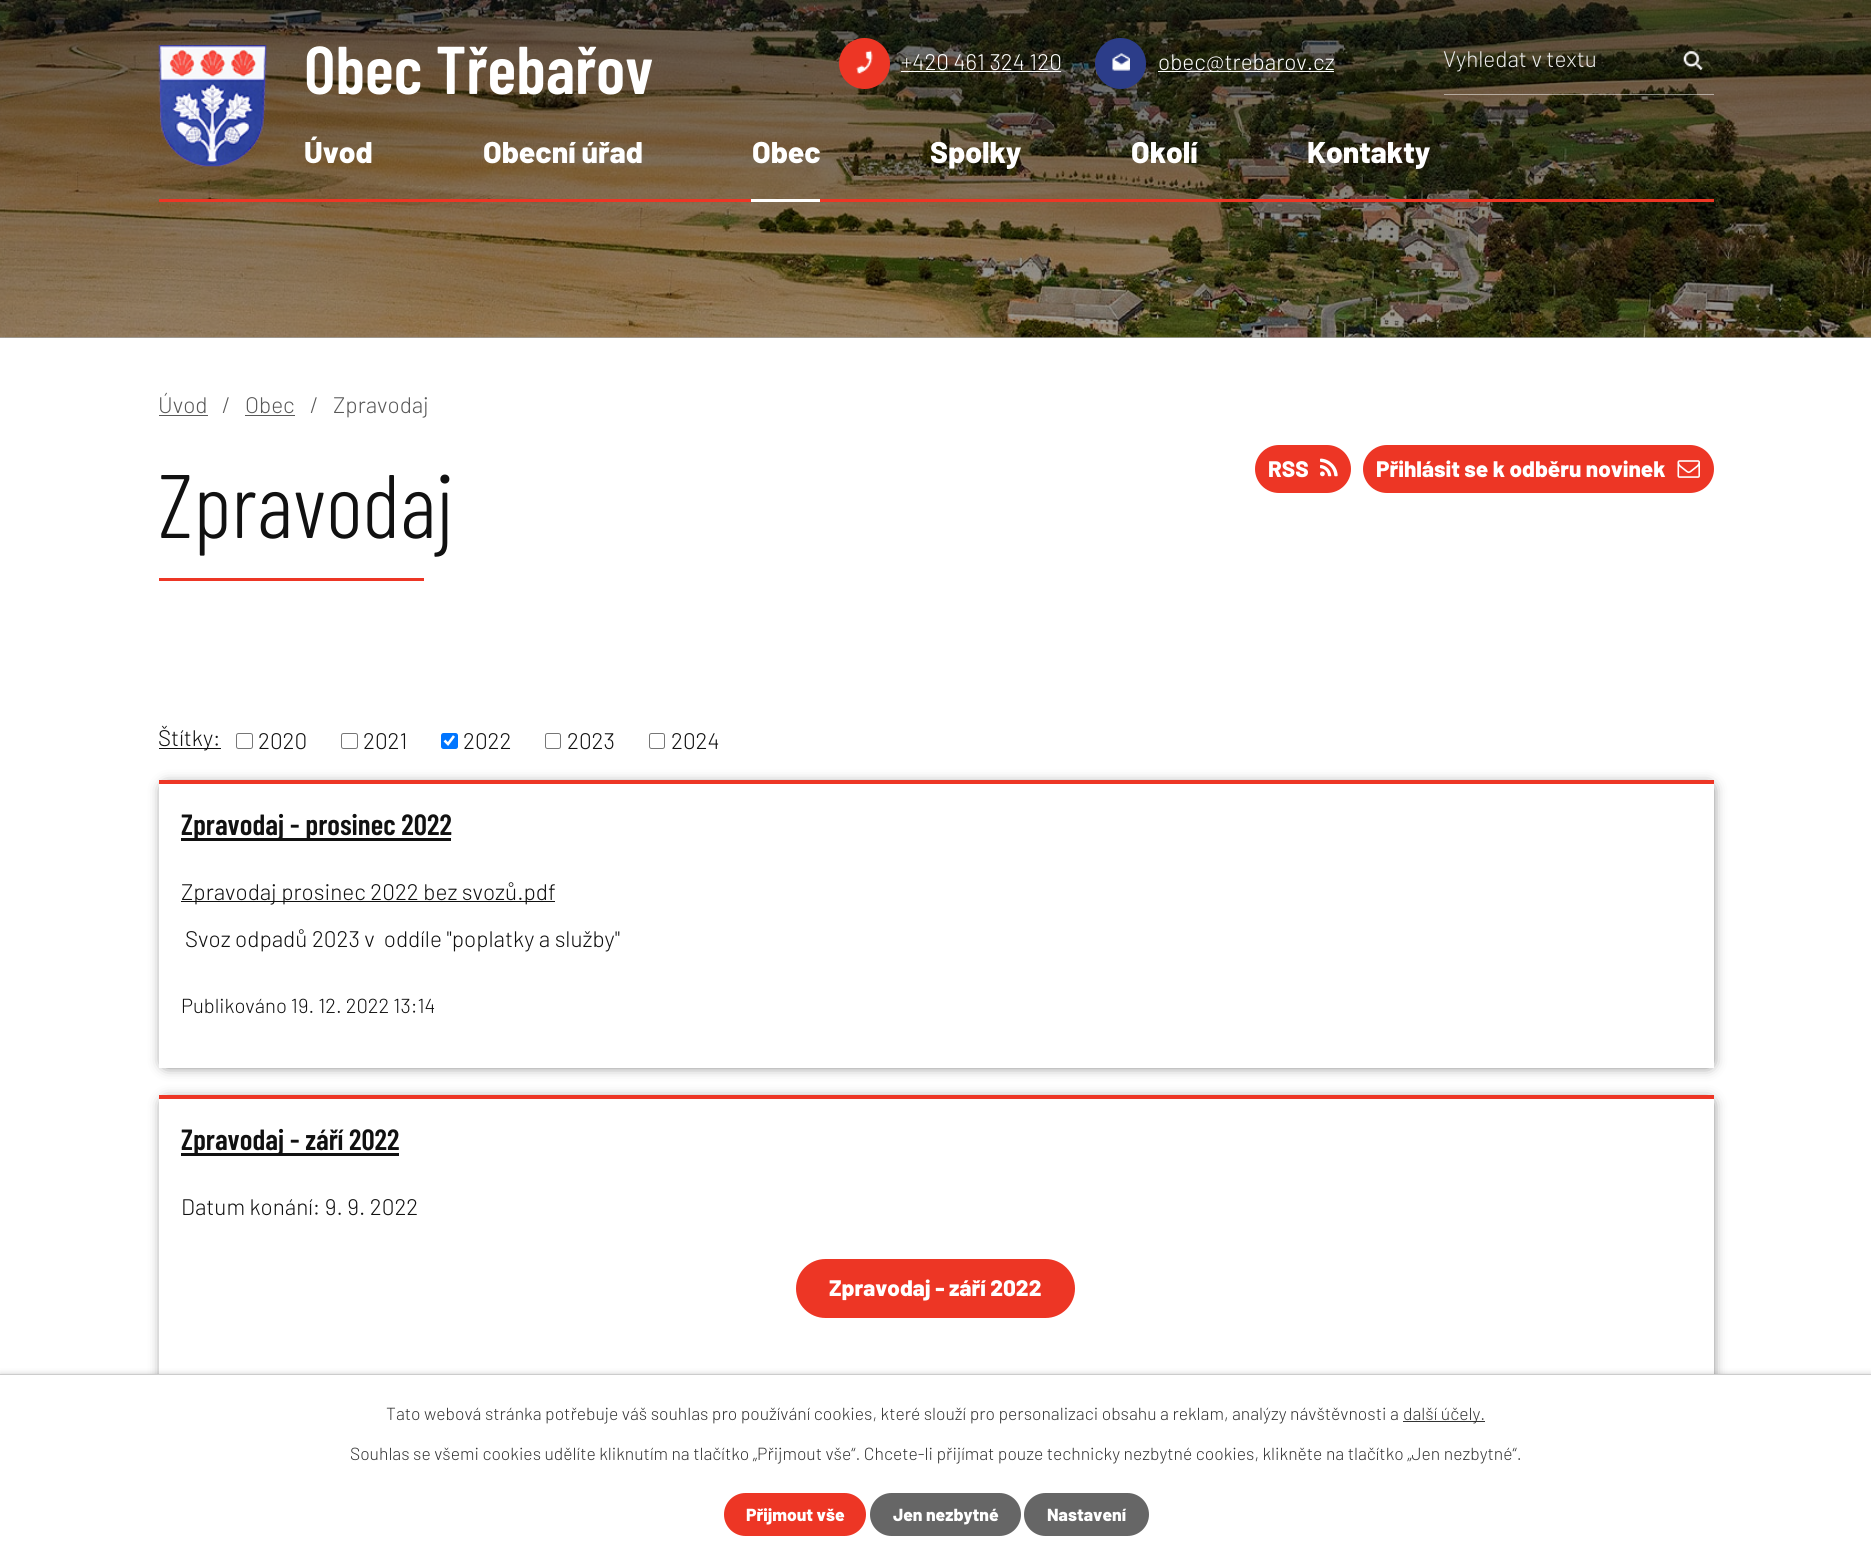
#include <cairo/cairo.h>
#include <math.h>
#include <stddef.h>

static cairo_t *cr;

static void use_color(int r, int g, int b) {
  cairo_set_source_rgb(cr, r / 255.0, g / 255.0, b / 255.0);
}

static void text(double x, double y, const char *s, const char *family, double size, int italic, int bold, int r, int g, int b) {
  cairo_select_font_face(cr, family, italic ? CAIRO_FONT_SLANT_ITALIC : CAIRO_FONT_SLANT_NORMAL,
    bold ? CAIRO_FONT_WEIGHT_BOLD : CAIRO_FONT_WEIGHT_NORMAL);
  cairo_set_font_size(cr, size);
  use_color(r, g, b);
  cairo_move_to(cr, x, y);
  cairo_show_text(cr, s);
}

static void box(double x, double y, double w, double h, int r, int g, int b) {
  use_color(r, g, b);
  cairo_rectangle(cr, x, y, w, h);
  cairo_fill(cr);
}

static void round_rect(double x, double y, double w, double h, double r) {
  cairo_new_sub_path(cr);
  cairo_arc(cr, x + w - r, y + h - r, r, 0, M_PI / 2);
  cairo_arc(cr, x + r, y + h - r, r, M_PI / 2, M_PI);
  cairo_arc(cr, x + r, y + r, r, M_PI, 1.5 * M_PI);
  cairo_arc(cr, x + w - r, y + r, r, 1.5 * M_PI, 2 * M_PI);
  cairo_close_path(cr);
}

static void shadow(double x, double y, double w, double h, double r, double blur, double alpha) {
  cairo_push_group_with_content(cr, CAIRO_CONTENT_ALPHA);
  cairo_set_operator(cr, CAIRO_OPERATOR_SOURCE);
  for (int i = 15; i >= -15 && fmin(w, h) + blur * i / 3 > 0; i -= 2) {
    double e = blur * i / 6;
    cairo_set_source_rgba(cr, 0, 0, 0, alpha * erfc((i - 1) / 8.5) / 2);
    round_rect(x - e, y - e, w + 2 * e, h + 2 * e, fmax(0, fmin(r + e + blur * .6, fmin(w, h) / 2 + e)));
    cairo_fill(cr);
  }
  cairo_pattern_t *soft = cairo_pop_group(cr);
  cairo_mask(cr, soft);
  cairo_pattern_destroy(soft);
}

static void picture(const char *path, double x, double y, double w, double h) {
  cairo_surface_t *image = cairo_image_surface_create_from_png(path);
  cairo_save(cr);
  cairo_set_source_surface(cr, image, x, y);
  cairo_rectangle(cr, x, y, w, h);
  cairo_fill(cr);
  cairo_restore(cr);
  cairo_surface_destroy(image);
}

static void draw(void) {
  cairo_pattern_t *gradient;
  use_color(255, 255, 255);
  cairo_paint(cr);
  picture("img_01.png", 0, 0, 1871, 338);
  gradient = cairo_pattern_create_linear(936, 875, 936, 0);
  cairo_pattern_add_color_stop_rgba(gradient, 0, 0, 0, 0, 0);
  cairo_pattern_add_color_stop_rgba(gradient, 1, 0, 0, 0, 0.6);
  cairo_set_source(cr, gradient);
  cairo_pattern_destroy(gradient);
  cairo_rectangle(cr, 0, 0, 1871, 338);
  cairo_fill(cr);
  picture("img_02.png", 158, 45, 109, 122);
  use_color(237, 54, 37);
  cairo_arc(cr, 864.5, 63.5, 25.5, 0, 2 * M_PI);
  cairo_fill(cr);
  picture("img_03.png", 856, 50, 17, 24);
  box(901, 71, 160, 1, 255, 255, 255);
  use_color(44, 61, 137);
  cairo_arc(cr, 1120.5, 63.5, 25.5, 0, 2 * M_PI);
  cairo_fill(cr);
  picture("img_04.png", 1112, 53, 18, 18);
  box(1158, 71, 176, 1, 255, 255, 255);
  cairo_set_source_rgba(cr, 1, 1, 1, 0.5);
  cairo_rectangle(cr, 1444, 94, 270, 1);
  cairo_fill(cr);
  picture("img_05.png", 1683, 51, 20, 20);
  box(159, 199, 1555, 3, 237, 54, 37);
  box(751, 199, 69, 3, 255, 255, 255);
  box(159, 415, 49, 1, 88, 88, 88);
  box(245, 415, 50, 1, 88, 88, 88);
  use_color(237, 54, 37);
  round_rect(1255, 445, 96, 48, 24);
  cairo_fill(cr);
  picture("img_06.png", 1320, 458, 18, 19);
  round_rect(1363, 445, 351, 48, 24);
  cairo_fill(cr);
  picture("img_07.png", 1677, 460, 23, 18);
  box(159, 578, 265, 3, 237, 54, 37);
  box(159, 748, 62, 1, 17, 17, 17);
  round_rect(236.5, 733.5, 16, 15, 2);
  use_color(118, 118, 118);
  cairo_set_line_width(cr, 1);
  cairo_stroke(cr);
  round_rect(341.5, 733.5, 16, 15, 2);
  cairo_stroke(cr);
  use_color(0, 117, 255);
  round_rect(441, 733, 17, 16, 2.5);
  cairo_fill(cr);
  cairo_new_path(cr);
  cairo_move_to(cr, 444.5, 740.5);
  cairo_line_to(cr, 448, 744);
  cairo_line_to(cr, 454, 736);
  use_color(255, 255, 255);
  cairo_set_line_width(cr, 2.6);
  cairo_stroke(cr);
  round_rect(545.5, 733.5, 15, 15, 2);
  use_color(118, 118, 118);
  cairo_set_line_width(cr, 1);
  cairo_stroke(cr);
  round_rect(649.5, 733.5, 15, 15, 2);
  cairo_stroke(cr);
  use_color(17, 17, 17);
  shadow(166, 788, 1543, 275, 0, 7.5, 1);
  box(159, 784, 1555, 284, 255, 255, 255);
  box(159, 780, 1555, 4, 237, 54, 37);
  box(181, 838, 270, 3, 17, 17, 17);
  box(181, 901, 374, 1, 17, 17, 17);
  use_color(17, 17, 17);
  shadow(166, 1103, 1543, 331, 0, 7.5, 1);
  box(159, 1099, 1555, 275, 255, 255, 255);
  box(159, 1095, 1555, 4, 237, 54, 37);
  box(181, 1153, 218, 3, 17, 17, 17);
  use_color(237, 54, 37);
  round_rect(796, 1259, 279, 59, 29.5);
  cairo_fill(cr);
  use_color(0, 0, 0);
  shadow(0, 1374, 1871, 186, 0, 3, 0.2);
  box(0, 1375, 1871, 185, 255, 255, 255);
  box(0, 1374, 1871, 1, 204, 204, 204);
  box(1403, 1421, 82, 1, 51, 51, 51);
  use_color(237, 54, 37);
  round_rect(724, 1493, 142, 43, 21.5);
  cairo_fill(cr);
  use_color(102, 102, 102);
  round_rect(870, 1493, 151, 43, 21.5);
  cairo_fill(cr);
  round_rect(1024, 1493, 125, 43, 21.5);
  cairo_fill(cr);
  text(304, 94, "Obec Třebařov", "Barlow Condensed SemiBold", 67.5, 0, 0, 255, 255, 255);
  text(901, 70, "+420 461 324 120", "Barlow Light", 22.5, 0, 0, 255, 255, 255);
  text(1158, 70, "obec@trebarov.cz", "Barlow Light", 22.5, 0, 0, 255, 255, 255);
  text(1443, 67, "Vyhledat v textu", "Barlow Light", 22.5, 0, 0, 235, 235, 235);
  text(304, 163, "Úvod", "Barlow ExtraBold", 30, 0, 0, 255, 255, 255);
  text(483, 163, "Obecní úřad", "Barlow ExtraBold", 30, 0, 0, 255, 255, 255);
  text(752, 163, "Obec", "Barlow ExtraBold", 30, 0, 0, 255, 255, 255);
  text(930, 163, "Spolky", "Barlow ExtraBold", 30, 0, 0, 255, 255, 255);
  text(1131, 163, "Okolí", "Barlow ExtraBold", 30, 0, 0, 255, 255, 255);
  text(1307, 163, "Kontakty", "Barlow ExtraBold", 30, 0, 0, 255, 255, 255);
  text(158, 413, "Úvod", "Barlow Light", 22.5, 0, 0, 88, 88, 88);
  text(222, 413, "/", "Barlow Light", 22.5, 0, 0, 88, 88, 88);
  text(245, 413, "Obec", "Barlow Light", 22.5, 0, 0, 88, 88, 88);
  text(310, 413, "/", "Barlow Light", 22.5, 0, 0, 88, 88, 88);
  text(333, 413, "Zpravodaj", "Barlow Light", 22.5, 0, 0, 88, 88, 88);
  text(1268, 477, "RSS", "Barlow ExtraBold", 22.5, 0, 0, 255, 255, 255);
  text(1376, 477, "Přihlásit se k odběru novinek", "Barlow ExtraBold", 22.5, 0, 0, 255, 255, 255);
  text(158, 538, "Zpravodaj", "Barlow Condensed Light", 90, 0, 0, 17, 17, 17);
  text(158, 746, "Štítky:", "Barlow Light", 22.5, 0, 0, 17, 17, 17);
  text(258, 749, "2020", "Barlow Light", 22.5, 0, 0, 17, 17, 17);
  text(363, 749, "2021", "Barlow Light", 22.5, 0, 0, 17, 17, 17);
  text(463, 749, "2022", "Barlow Light", 22.5, 0, 0, 17, 17, 17);
  text(567, 749, "2023", "Barlow Light", 22.5, 0, 0, 17, 17, 17);
  text(671, 749, "2024", "Barlow Light", 22.5, 0, 0, 17, 17, 17);
  text(181, 835, "Zpravodaj - prosinec 2022", "Barlow Condensed SemiBold", 29.25, 0, 0, 17, 17, 17);
  text(181, 900, "Zpravodaj prosinec 2022 bez svozů.pdf", "Barlow Light", 22.5, 0, 0, 17, 17, 17);
  text(185, 947, "Svoz odpadů 2023 v  oddíle \"poplatky a služby\"", "Barlow Light", 22.5, 0, 0, 17, 17, 17);
  text(181, 1013, "Publikováno 19. 12. 2022 13:14", "Barlow Light", 20.25, 0, 0, 17, 17, 17);
  text(181, 1150, "Zpravodaj - září 2022", "Barlow Condensed SemiBold", 29.25, 0, 0, 17, 17, 17);
  text(181, 1215, "Datum konání: 9. 9. 2022", "Barlow Light", 22.5, 0, 0, 17, 17, 17);
  text(829, 1296, "Zpravodaj - září 2022", "Barlow ExtraBold", 22.5, 0, 0, 255, 255, 255);
  text(386, 1420, "Tato webová stránka potřebuje váš souhlas pro používání cookies, které slouží pro personalizaci obsahu a reklam, analýzy návštěvnosti a", "Barlow Light", 17.5, 0, 0, 51, 51, 51);
  text(1403, 1420, "další účely.", "Barlow Light", 17.5, 0, 0, 51, 51, 51);
  text(350, 1460, "Souhlas se všemi cookies udělíte kliknutím na tlačítko „Přijmout vše“. Chcete-li přijímat pouze technicky nezbytné cookies, klikněte na tlačítko „Jen nezbytné“.", "Barlow Light", 17.5, 0, 0, 51, 51, 51);
  text(746, 1521, "Přijmout vše", "Barlow ExtraBold", 17.5, 0, 0, 255, 255, 255);
  text(893, 1521, "Jen nezbytné", "Barlow ExtraBold", 17.5, 0, 0, 255, 255, 255);
  text(1047, 1521, "Nastavení", "Barlow ExtraBold", 17.5, 0, 0, 255, 255, 255);
}

int main(void) {
  cairo_surface_t *surface = cairo_image_surface_create(CAIRO_FORMAT_RGB24, 1871, 1560);
  cr = cairo_create(surface);
  cairo_font_options_t *options = cairo_font_options_create();
  cairo_font_options_set_hint_metrics(options, CAIRO_HINT_METRICS_OFF);
  cairo_font_options_set_hint_style(options, CAIRO_HINT_STYLE_NONE);
  cairo_set_font_options(cr, options);
  cairo_set_miter_limit(cr, 4);
  draw();
  cairo_surface_write_to_png(surface, "out.png");
  cairo_font_options_destroy(options);
  cairo_destroy(cr);
  cairo_surface_destroy(surface);
  return 0;
}
